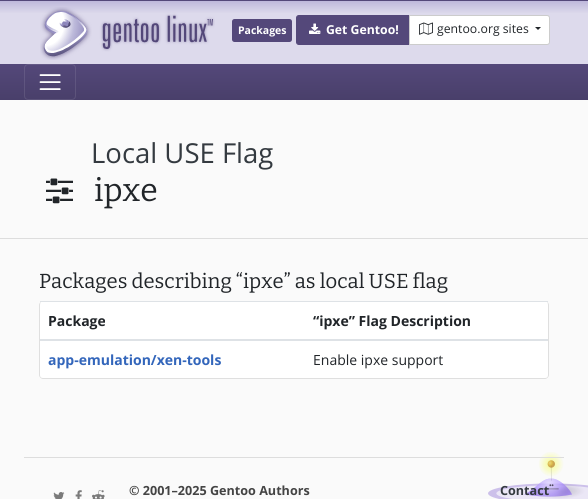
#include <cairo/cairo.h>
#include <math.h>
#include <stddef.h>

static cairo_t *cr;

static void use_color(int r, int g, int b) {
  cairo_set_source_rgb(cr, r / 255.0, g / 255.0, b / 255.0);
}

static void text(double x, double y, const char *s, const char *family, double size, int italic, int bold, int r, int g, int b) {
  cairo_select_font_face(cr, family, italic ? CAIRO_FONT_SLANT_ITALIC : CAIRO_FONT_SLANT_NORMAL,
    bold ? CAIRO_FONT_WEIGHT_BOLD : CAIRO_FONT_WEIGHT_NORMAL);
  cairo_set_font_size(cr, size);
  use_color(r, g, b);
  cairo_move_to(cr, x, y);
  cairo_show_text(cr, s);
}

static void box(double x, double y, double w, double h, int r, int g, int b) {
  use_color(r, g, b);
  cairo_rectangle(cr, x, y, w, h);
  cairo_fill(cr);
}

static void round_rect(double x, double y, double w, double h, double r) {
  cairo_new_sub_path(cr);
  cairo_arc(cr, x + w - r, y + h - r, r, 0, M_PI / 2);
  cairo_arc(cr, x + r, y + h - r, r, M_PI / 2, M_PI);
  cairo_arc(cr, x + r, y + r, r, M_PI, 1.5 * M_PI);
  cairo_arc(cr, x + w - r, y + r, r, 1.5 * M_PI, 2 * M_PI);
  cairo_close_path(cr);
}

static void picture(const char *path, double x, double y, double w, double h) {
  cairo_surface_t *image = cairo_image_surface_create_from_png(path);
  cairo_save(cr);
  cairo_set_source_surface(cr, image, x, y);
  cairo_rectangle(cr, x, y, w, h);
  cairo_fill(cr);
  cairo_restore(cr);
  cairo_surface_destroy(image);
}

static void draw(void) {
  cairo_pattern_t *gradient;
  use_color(250, 250, 250);
  cairo_paint(cr);
  box(0, 0, 588, 1, 84, 72, 122);
  gradient = cairo_pattern_create_linear(294, 1, 294, 64);
  cairo_pattern_add_color_stop_rgba(gradient, 0, 0.745, 0.722, 0.859, 1);
  cairo_pattern_add_color_stop_rgba(gradient, 0.2, 0.867, 0.855, 0.925, 1);
  cairo_set_source(cr, gradient);
  cairo_pattern_destroy(gradient);
  cairo_rectangle(cr, 0, 1, 588, 63);
  cairo_fill(cr);
  picture("img_01.png", 40, 7, 175, 53);
  use_color(84, 72, 122);
  round_rect(232, 19, 60, 23, 2.5);
  cairo_fill(cr);
  cairo_new_path(cr);
  cairo_move_to(cr, 299, 15.5);
  cairo_line_to(cr, 409.5, 15.5);
  cairo_line_to(cr, 409.5, 44.5);
  cairo_line_to(cr, 299, 44.5);
  cairo_curve_to(cr, 297.5, 44.5, 296.5, 43.5, 296.5, 42);
  cairo_line_to(cr, 296.5, 18);
  cairo_curve_to(cr, 296.5, 16.5, 297.5, 15.5, 299, 15.5);
  cairo_close_path(cr);
  cairo_fill_preserve(cr);
  cairo_set_line_width(cr, 1);
  cairo_stroke(cr);
  picture("img_02.png", 309, 23, 12, 11);
  use_color(255, 255, 255);
  cairo_new_path(cr);
  cairo_move_to(cr, 409.5, 15.5);
  cairo_line_to(cr, 547, 15.5);
  cairo_curve_to(cr, 548.5, 15.5, 549.5, 16.5, 549.5, 18);
  cairo_line_to(cr, 549.5, 42);
  cairo_curve_to(cr, 549.5, 43.5, 548.5, 44.5, 547, 44.5);
  cairo_line_to(cr, 409.5, 44.5);
  cairo_close_path(cr);
  cairo_fill_preserve(cr);
  use_color(204, 204, 204);
  cairo_stroke(cr);
  picture("img_03.png", 419, 22, 14, 13);
  use_color(33, 37, 41);
  cairo_new_path(cr);
  cairo_move_to(cr, 535, 27);
  cairo_line_to(cr, 541, 27);
  cairo_line_to(cr, 538, 30);
  cairo_close_path(cr);
  cairo_fill(cr);
  gradient = cairo_pattern_create_linear(294, 64, 294, 100);
  cairo_pattern_add_color_stop_rgba(gradient, 0, 0.329, 0.282, 0.478, 1);
  cairo_pattern_add_color_stop_rgba(gradient, 1, 0.286, 0.247, 0.416, 1);
  cairo_set_source(cr, gradient);
  cairo_pattern_destroy(gradient);
  cairo_rectangle(cr, 0, 64, 588, 36);
  cairo_fill(cr);
  round_rect(24.5, 64.5, 51, 35, 3.5);
  cairo_set_source_rgba(cr, 1, 1, 1, 0.1);
  cairo_stroke(cr);
  picture("img_04.png", 39, 74, 22, 16);
  picture("img_05.png", 46, 178, 27, 26);
  box(0, 238, 588, 1, 221, 221, 221);
  use_color(255, 255, 255);
  round_rect(39, 301, 510, 78, 4);
  cairo_fill(cr);
  use_color(223, 223, 223);
  cairo_set_fill_rule(cr, CAIRO_FILL_RULE_EVEN_ODD);
  cairo_new_path(cr);
  cairo_move_to(cr, 43, 301);
  cairo_line_to(cr, 545, 301);
  cairo_curve_to(cr, 547, 301, 549, 303, 549, 305);
  cairo_line_to(cr, 549, 375);
  cairo_curve_to(cr, 549, 377, 547, 379, 545, 379);
  cairo_line_to(cr, 43, 379);
  cairo_curve_to(cr, 41, 379, 39, 377, 39, 375);
  cairo_line_to(cr, 39, 305);
  cairo_curve_to(cr, 39, 303, 41, 301, 43, 301);
  cairo_close_path(cr);
  cairo_move_to(cr, 43, 301);
  cairo_line_to(cr, 545, 301);
  cairo_curve_to(cr, 547, 301, 548, 303, 548, 305);
  cairo_line_to(cr, 548, 375);
  cairo_curve_to(cr, 548, 377, 547, 378, 545, 378);
  cairo_line_to(cr, 43, 378);
  cairo_curve_to(cr, 41, 378, 40, 377, 40, 375);
  cairo_line_to(cr, 40, 305);
  cairo_curve_to(cr, 40, 303, 41, 301, 43, 301);
  cairo_close_path(cr);
  cairo_fill(cr);
  box(40, 301, 508, 1, 222, 226, 230);
  box(40, 339, 508, 2, 222, 226, 230);
  picture("img_06.png", 488, 452, 100, 47);
  box(24, 457, 540, 1, 221, 221, 221);
  picture("img_07.png", 53, 492, 12, 7);
  picture("img_08.png", 75, 490, 7, 9);
  picture("img_09.png", 92, 490, 13, 9);
  text(238, 34, "Packages", "Open Sans", 10.5, 0, 1, 255, 255, 255);
  text(326, 34, "Get Gentoo!", "Open Sans", 12.25, 0, 1, 255, 255, 255);
  text(437, 33, "gentoo.org sites", "Open Sans", 12.25, 0, 0, 33, 37, 41);
  text(91, 163, "Local USE Flag", "Open Sans", 27.5, 0, 0, 52, 58, 64);
  text(94, 201, "ipxe", "Bitter", 32, 0, 0, 33, 37, 41);
  text(39, 288, "Packages describing “ipxe” as local USE flag", "Bitter", 20.3, 0, 0, 33, 37, 41);
  text(48, 326, "Package", "Open Sans", 14, 0, 1, 33, 37, 41);
  text(313, 326, "“ipxe” Flag Description", "Open Sans", 14, 0, 1, 33, 37, 41);
  text(48, 365, "app-emulation/xen-tools", "Open Sans", 14, 0, 1, 51, 102, 187);
  text(313, 365, "Enable ipxe support", "Open Sans", 14, 0, 0, 33, 37, 41);
  text(129, 495, "© 2001–2025 Gentoo Authors", "Open Sans", 12.6, 0, 1, 68, 68, 68);
  text(500, 495, "Contact", "Open Sans", 12.6, 0, 1, 52, 58, 64);
}

int main(void) {
  cairo_surface_t *surface = cairo_image_surface_create(CAIRO_FORMAT_RGB24, 588, 499);
  cr = cairo_create(surface);
  cairo_font_options_t *options = cairo_font_options_create();
  cairo_font_options_set_hint_metrics(options, CAIRO_HINT_METRICS_OFF);
  cairo_font_options_set_hint_style(options, CAIRO_HINT_STYLE_NONE);
  cairo_set_font_options(cr, options);
  cairo_set_miter_limit(cr, 4);
  draw();
  cairo_surface_write_to_png(surface, "out.png");
  cairo_font_options_destroy(options);
  cairo_destroy(cr);
  cairo_surface_destroy(surface);
  return 0;
}
